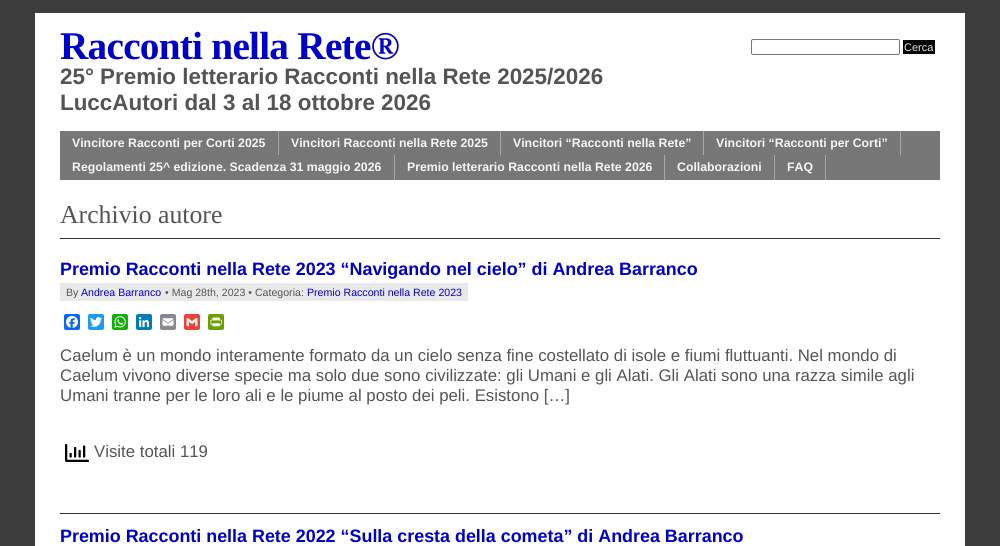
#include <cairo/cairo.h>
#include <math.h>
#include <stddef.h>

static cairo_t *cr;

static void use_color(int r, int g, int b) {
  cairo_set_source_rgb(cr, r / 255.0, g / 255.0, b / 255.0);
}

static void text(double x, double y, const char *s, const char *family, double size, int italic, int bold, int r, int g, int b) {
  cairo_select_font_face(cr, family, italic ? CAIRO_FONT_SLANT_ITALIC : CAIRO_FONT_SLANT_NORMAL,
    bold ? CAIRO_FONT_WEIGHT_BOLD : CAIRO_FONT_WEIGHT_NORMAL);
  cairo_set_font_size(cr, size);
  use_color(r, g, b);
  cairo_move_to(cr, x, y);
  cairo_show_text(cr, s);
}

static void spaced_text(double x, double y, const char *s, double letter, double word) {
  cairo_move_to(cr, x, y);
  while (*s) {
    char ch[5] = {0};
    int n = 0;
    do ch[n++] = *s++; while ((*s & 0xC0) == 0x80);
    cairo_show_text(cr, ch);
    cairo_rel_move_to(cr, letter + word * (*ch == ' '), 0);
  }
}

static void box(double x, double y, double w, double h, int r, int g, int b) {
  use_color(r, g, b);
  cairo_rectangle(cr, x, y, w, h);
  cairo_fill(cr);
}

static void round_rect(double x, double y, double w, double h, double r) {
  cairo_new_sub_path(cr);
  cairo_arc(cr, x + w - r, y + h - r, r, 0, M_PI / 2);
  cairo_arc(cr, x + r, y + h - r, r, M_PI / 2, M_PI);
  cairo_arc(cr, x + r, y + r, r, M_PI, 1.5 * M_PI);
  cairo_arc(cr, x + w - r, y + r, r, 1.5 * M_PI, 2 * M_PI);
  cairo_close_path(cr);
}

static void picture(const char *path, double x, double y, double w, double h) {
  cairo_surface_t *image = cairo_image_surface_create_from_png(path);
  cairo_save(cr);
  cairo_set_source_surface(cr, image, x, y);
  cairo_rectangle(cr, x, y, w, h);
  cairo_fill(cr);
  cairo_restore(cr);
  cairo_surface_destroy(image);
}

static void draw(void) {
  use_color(60, 60, 60);
  cairo_paint(cr);
  box(35, 13, 930, 533, 255, 255, 255);
  round_rect(751.5, 39.5, 148, 15, 1.5);
  use_color(118, 118, 118);
  cairo_set_line_width(cr, 1);
  cairo_stroke(cr);
  box(903, 40, 32, 14, 0, 0, 0);
  box(60, 131, 880, 49, 119, 119, 119);
  box(278, 131, 1, 24, 169, 169, 169);
  box(500, 131, 1, 24, 169, 169, 169);
  box(703, 131, 1, 24, 169, 169, 169);
  box(900, 131, 1, 24, 169, 169, 169);
  box(394, 155, 1, 25, 169, 169, 169);
  box(664, 155, 1, 25, 169, 169, 169);
  box(774, 155, 1, 25, 169, 169, 169);
  box(825, 155, 1, 25, 169, 169, 169);
  box(60, 238, 880, 1, 51, 51, 51);
  box(60, 283, 408, 18, 233, 233, 233);
  use_color(8, 102, 255);
  round_rect(64, 314, 16, 16, 2);
  cairo_fill(cr);
  picture("img_01.png", 66, 316, 12, 12);
  use_color(29, 155, 240);
  round_rect(88, 314, 16, 16, 2);
  cairo_fill(cr);
  picture("img_02.png", 90, 317, 12, 10);
  use_color(18, 175, 10);
  round_rect(112, 314, 16, 16, 2);
  cairo_fill(cr);
  picture("img_03.png", 114, 316, 12, 12);
  use_color(0, 123, 181);
  round_rect(136, 314, 16, 16, 2);
  cairo_fill(cr);
  picture("img_04.png", 139, 317, 11, 11);
  use_color(136, 137, 144);
  round_rect(160, 314, 16, 16, 2);
  cairo_fill(cr);
  picture("img_05.png", 162, 318, 12, 8);
  use_color(234, 67, 53);
  round_rect(184, 314, 16, 16, 2);
  cairo_fill(cr);
  picture("img_06.png", 186, 318, 12, 9);
  use_color(109, 159, 0);
  round_rect(208, 314, 16, 16, 2);
  cairo_fill(cr);
  picture("img_07.png", 210, 317, 12, 10);
  picture("img_08.png", 65, 444, 24, 18);
  box(60, 513, 880, 1, 51, 51, 51);
  cairo_select_font_face(cr, "Liberation Serif", CAIRO_FONT_SLANT_NORMAL, CAIRO_FONT_WEIGHT_BOLD);
  cairo_set_font_size(cr, 39.25);
  use_color(0, 0, 204);
  spaced_text(60, 59, "Racconti nella Rete®", -0.75, 0);
  text(60, 84, "25° Premio letterario Racconti nella Rete 2025/2026", "Liberation Sans", 22.4, 0, 1, 84, 84, 84);
  text(60, 110, "LuccAutori dal 3 al 18 ottobre 2026", "Liberation Sans", 22.4, 0, 1, 84, 84, 84);
  text(904, 51, "Cerca", "Liberation Sans", 11, 0, 0, 231, 231, 231);
  text(72, 147, "Vincitore Racconti per Corti 2025", "Liberation Sans", 12.3, 0, 1, 245, 245, 244);
  text(291, 147, "Vincitori Racconti nella Rete 2025", "Liberation Sans", 12.3, 0, 1, 245, 245, 244);
  text(513, 147, "Vincitori “Racconti nella Rete”", "Liberation Sans", 12.3, 0, 1, 245, 245, 244);
  text(716, 147, "Vincitori “Racconti per Corti”", "Liberation Sans", 12.3, 0, 1, 245, 245, 244);
  text(72, 171, "Regolamenti 25^ edizione. Scadenza 31 maggio 2026", "Liberation Sans", 12.3, 0, 1, 245, 245, 244);
  text(407, 171, "Premio letterario Racconti nella Rete 2026", "Liberation Sans", 12.3, 0, 1, 245, 245, 244);
  text(677, 171, "Collaborazioni", "Liberation Sans", 12.3, 0, 1, 245, 245, 244);
  text(787, 171, "FAQ", "Liberation Sans", 12.3, 0, 1, 245, 245, 244);
  text(60, 223, "Archivio autore", "Liberation Serif", 25.75, 0, 0, 84, 84, 84);
  text(60, 275, "Premio Racconti nella Rete 2023 “Navigando nel cielo” di Andrea Barranco", "Liberation Sans", 17.9, 0, 1, 0, 0, 204);
  text(66, 296, "By", "Liberation Sans", 10.6, 0, 0, 84, 84, 84);
  text(81, 296, "Andrea Barranco", "Liberation Sans", 10.6, 0, 0, 0, 0, 204);
  text(165, 296, "• Mag 28th, 2023 • Categoria:", "Liberation Sans", 10.6, 0, 0, 84, 84, 84);
  text(307, 296, "Premio Racconti nella Rete 2023", "Liberation Sans", 10.6, 0, 0, 0, 0, 204);
  text(60, 361, "Caelum è un mondo interamente formato da un cielo senza fine costellato di isole e fiumi fluttuanti. Nel mondo di", "Liberation Sans", 16.8, 0, 0, 84, 84, 84);
  text(60, 381, "Caelum vivono diverse specie ma solo due sono civilizzate: gli Umani e gli Alati. Gli Alati sono una razza simile agli", "Liberation Sans", 16.8, 0, 0, 84, 84, 84);
  text(60, 401, "Umani tranne per le loro ali e le piume al posto dei peli. Esistono […]", "Liberation Sans", 16.8, 0, 0, 84, 84, 84);
  text(94, 457, "Visite totali 119", "Liberation Sans", 16.8, 0, 0, 84, 84, 84);
  text(60, 542, "Premio Racconti nella Rete 2022 “Sulla cresta della cometa” di Andrea Barranco", "Liberation Sans", 17.9, 0, 1, 0, 0, 204);
}

int main(void) {
  cairo_surface_t *surface = cairo_image_surface_create(CAIRO_FORMAT_RGB24, 1000, 546);
  cr = cairo_create(surface);
  cairo_font_options_t *options = cairo_font_options_create();
  cairo_font_options_set_hint_metrics(options, CAIRO_HINT_METRICS_OFF);
  cairo_font_options_set_hint_style(options, CAIRO_HINT_STYLE_NONE);
  cairo_set_font_options(cr, options);
  cairo_set_miter_limit(cr, 4);
  draw();
  cairo_surface_write_to_png(surface, "out.png");
  cairo_font_options_destroy(options);
  cairo_destroy(cr);
  cairo_surface_destroy(surface);
  return 0;
}
